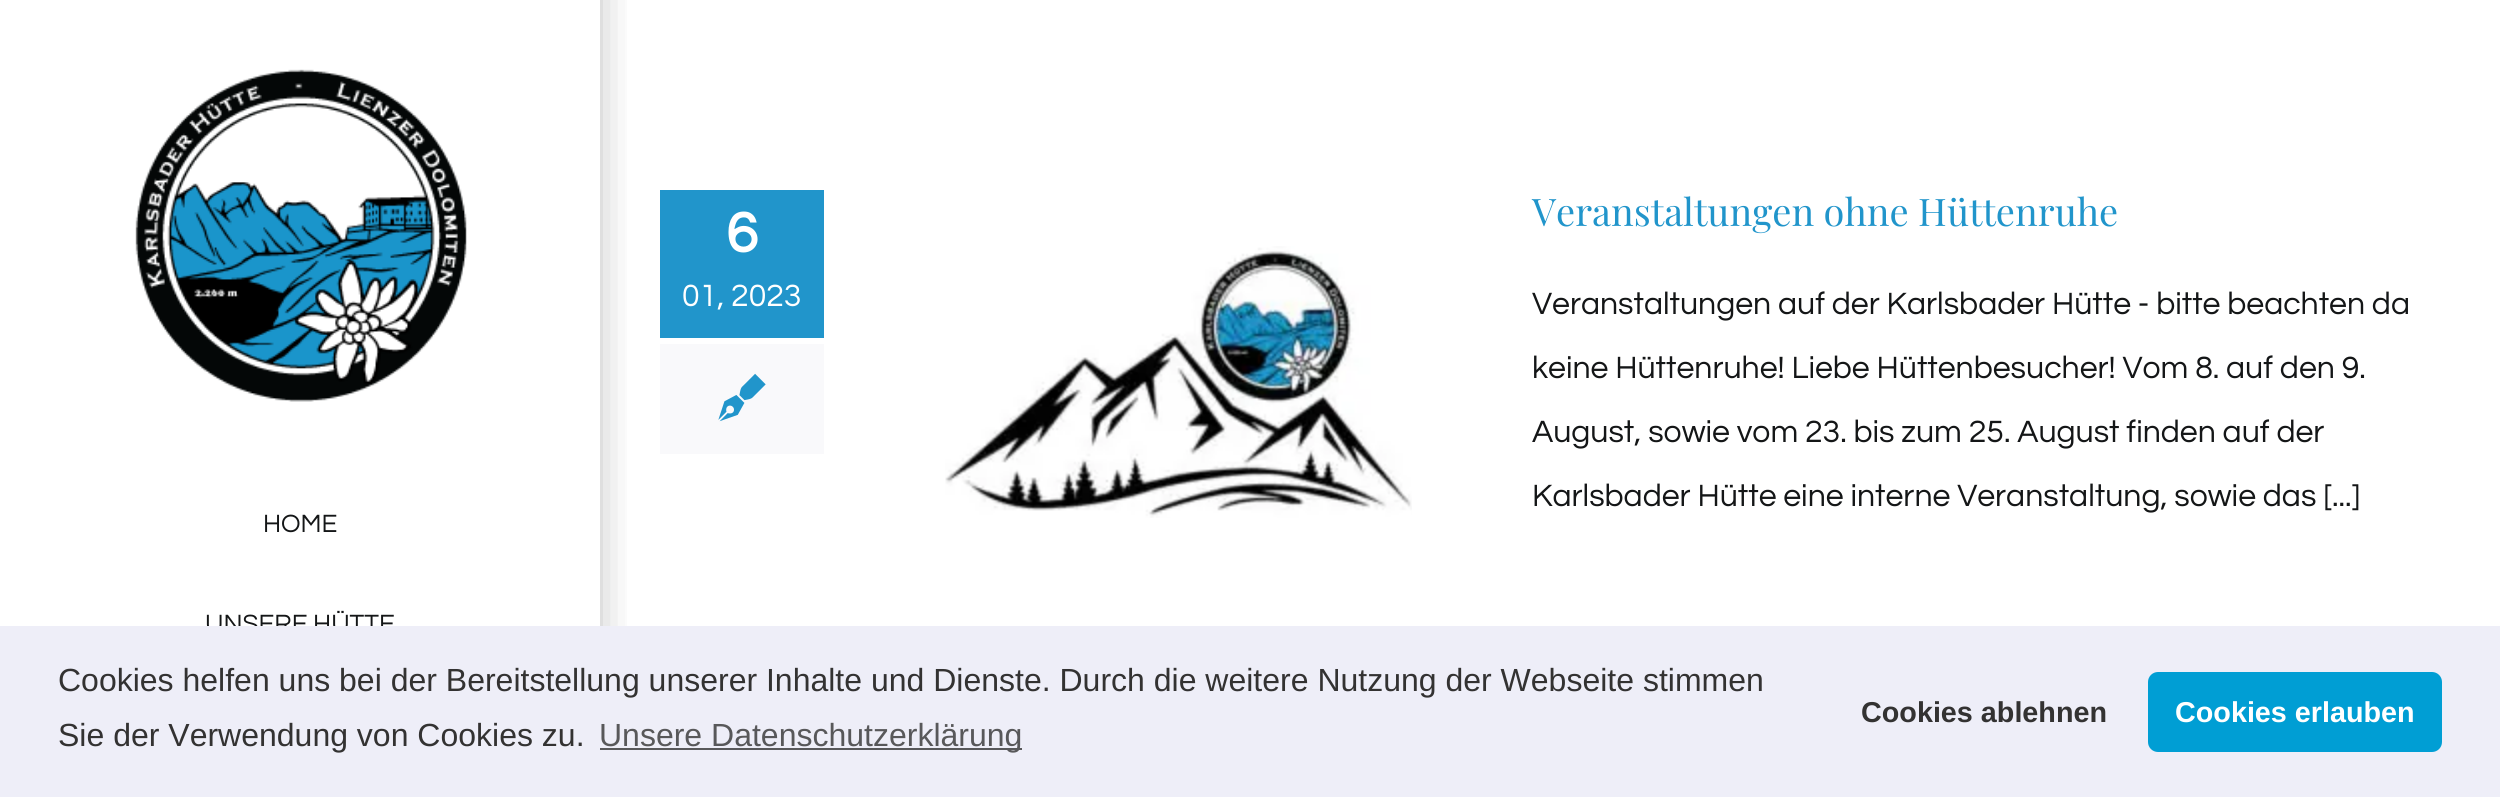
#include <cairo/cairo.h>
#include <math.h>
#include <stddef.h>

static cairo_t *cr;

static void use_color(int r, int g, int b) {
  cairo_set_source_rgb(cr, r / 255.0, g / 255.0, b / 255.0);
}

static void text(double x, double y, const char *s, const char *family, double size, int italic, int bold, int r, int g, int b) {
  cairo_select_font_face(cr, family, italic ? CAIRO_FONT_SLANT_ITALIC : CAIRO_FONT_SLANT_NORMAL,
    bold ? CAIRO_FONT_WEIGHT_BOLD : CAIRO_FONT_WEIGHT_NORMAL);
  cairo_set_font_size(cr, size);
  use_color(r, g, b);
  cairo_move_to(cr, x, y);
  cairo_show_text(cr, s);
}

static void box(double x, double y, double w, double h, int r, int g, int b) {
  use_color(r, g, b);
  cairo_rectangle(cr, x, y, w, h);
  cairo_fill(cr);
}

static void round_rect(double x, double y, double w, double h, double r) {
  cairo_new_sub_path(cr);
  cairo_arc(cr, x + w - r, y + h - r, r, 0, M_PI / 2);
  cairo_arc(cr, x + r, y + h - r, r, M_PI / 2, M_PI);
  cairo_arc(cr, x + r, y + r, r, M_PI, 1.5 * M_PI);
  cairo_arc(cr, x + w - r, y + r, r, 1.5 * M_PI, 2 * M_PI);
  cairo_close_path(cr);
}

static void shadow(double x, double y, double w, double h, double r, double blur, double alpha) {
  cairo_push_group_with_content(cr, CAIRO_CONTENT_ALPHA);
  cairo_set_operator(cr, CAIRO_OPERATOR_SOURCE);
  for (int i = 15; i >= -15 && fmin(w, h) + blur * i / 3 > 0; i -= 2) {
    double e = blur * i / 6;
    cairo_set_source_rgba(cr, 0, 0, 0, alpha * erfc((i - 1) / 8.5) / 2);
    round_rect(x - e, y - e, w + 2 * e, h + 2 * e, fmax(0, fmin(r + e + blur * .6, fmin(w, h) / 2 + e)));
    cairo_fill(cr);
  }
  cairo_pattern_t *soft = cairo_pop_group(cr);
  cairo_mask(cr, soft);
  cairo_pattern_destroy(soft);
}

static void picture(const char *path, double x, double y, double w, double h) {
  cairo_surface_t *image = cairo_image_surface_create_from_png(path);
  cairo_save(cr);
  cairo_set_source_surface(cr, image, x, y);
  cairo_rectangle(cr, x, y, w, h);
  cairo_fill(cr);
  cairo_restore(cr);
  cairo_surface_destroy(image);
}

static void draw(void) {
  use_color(255, 255, 255);
  cairo_paint(cr);
  box(660, 190, 164, 148, 33, 149, 203);
  box(660, 344, 164, 110, 249, 249, 251);
  picture("img_01.png", 718, 373, 48, 49);
  picture("img_02.png", 945, 246, 467, 272);
  cairo_save(cr);
  cairo_rectangle(cr, 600, 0, 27, 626);
  cairo_clip(cr);
  use_color(20, 22, 23);
  shadow(40, -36, 552, 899, 0, 22, 0.37);
  cairo_restore(cr);
  picture("img_03.png", 135, 69, 332, 333);
  text(726, 252, "6", "Questrial", 58, 0, 1, 255, 255, 255);
  text(682, 306, "01, 2023", "Questrial", 32, 0, 0, 255, 255, 255);
  text(1532, 226, "Veranstaltungen ohne Hüttenruhe", "Playfair Display", 38, 0, 0, 33, 149, 203);
  text(1532, 314, "Veranstaltungen auf der Karlsbader Hütte - bitte beachten da", "Questrial", 32, 0, 0, 20, 22, 23);
  text(1532, 378, "keine Hüttenruhe! Liebe Hüttenbesucher! Vom 8. auf den 9.", "Questrial", 32, 0, 0, 20, 22, 23);
  text(1532, 442, "August, sowie vom 23. bis zum 25. August finden auf der", "Questrial", 32, 0, 0, 20, 22, 23);
  text(1532, 506, "Karlsbader Hütte eine interne Veranstaltung, sowie das [...]", "Questrial", 32, 0, 0, 20, 22, 23);
  text(263, 532, "HOME", "Questrial", 26, 0, 0, 20, 22, 23);
  text(205, 632, "UNSERE HÜTTE", "Questrial", 26, 0, 0, 20, 22, 23);
  box(0, 626, 2500, 171, 238, 238, 248);
  text(58, 691, "Cookies helfen uns bei der Bereitstellung unserer Inhalte und Dienste. Durch die weitere Nutzung der Webseite stimmen", "Liberation Sans", 32, 0, 0, 51, 50, 50);
  text(58, 746, "Sie der Verwendung von Cookies zu.", "Liberation Sans", 32, 0, 0, 51, 50, 50);
  box(600, 748, 422, 2, 88, 88, 90);
  text(599, 746, "Unsere Datenschutzerklärung", "Liberation Sans", 32, 0, 0, 88, 88, 90);
  text(1861, 722, "Cookies ablehnen", "Liberation Sans", 28.75, 0, 1, 51, 50, 50);
  use_color(0, 158, 212);
  round_rect(2148, 672, 294, 80, 10);
  cairo_fill(cr);
  text(2175, 722, "Cookies erlauben", "Liberation Sans", 28.75, 0, 1, 255, 255, 255);
}

int main(void) {
  cairo_surface_t *surface = cairo_image_surface_create(CAIRO_FORMAT_RGB24, 2500, 797);
  cr = cairo_create(surface);
  cairo_font_options_t *options = cairo_font_options_create();
  cairo_font_options_set_hint_metrics(options, CAIRO_HINT_METRICS_OFF);
  cairo_font_options_set_hint_style(options, CAIRO_HINT_STYLE_NONE);
  cairo_set_font_options(cr, options);
  cairo_set_miter_limit(cr, 4);
  draw();
  cairo_surface_write_to_png(surface, "out.png");
  cairo_font_options_destroy(options);
  cairo_destroy(cr);
  cairo_surface_destroy(surface);
  return 0;
}
